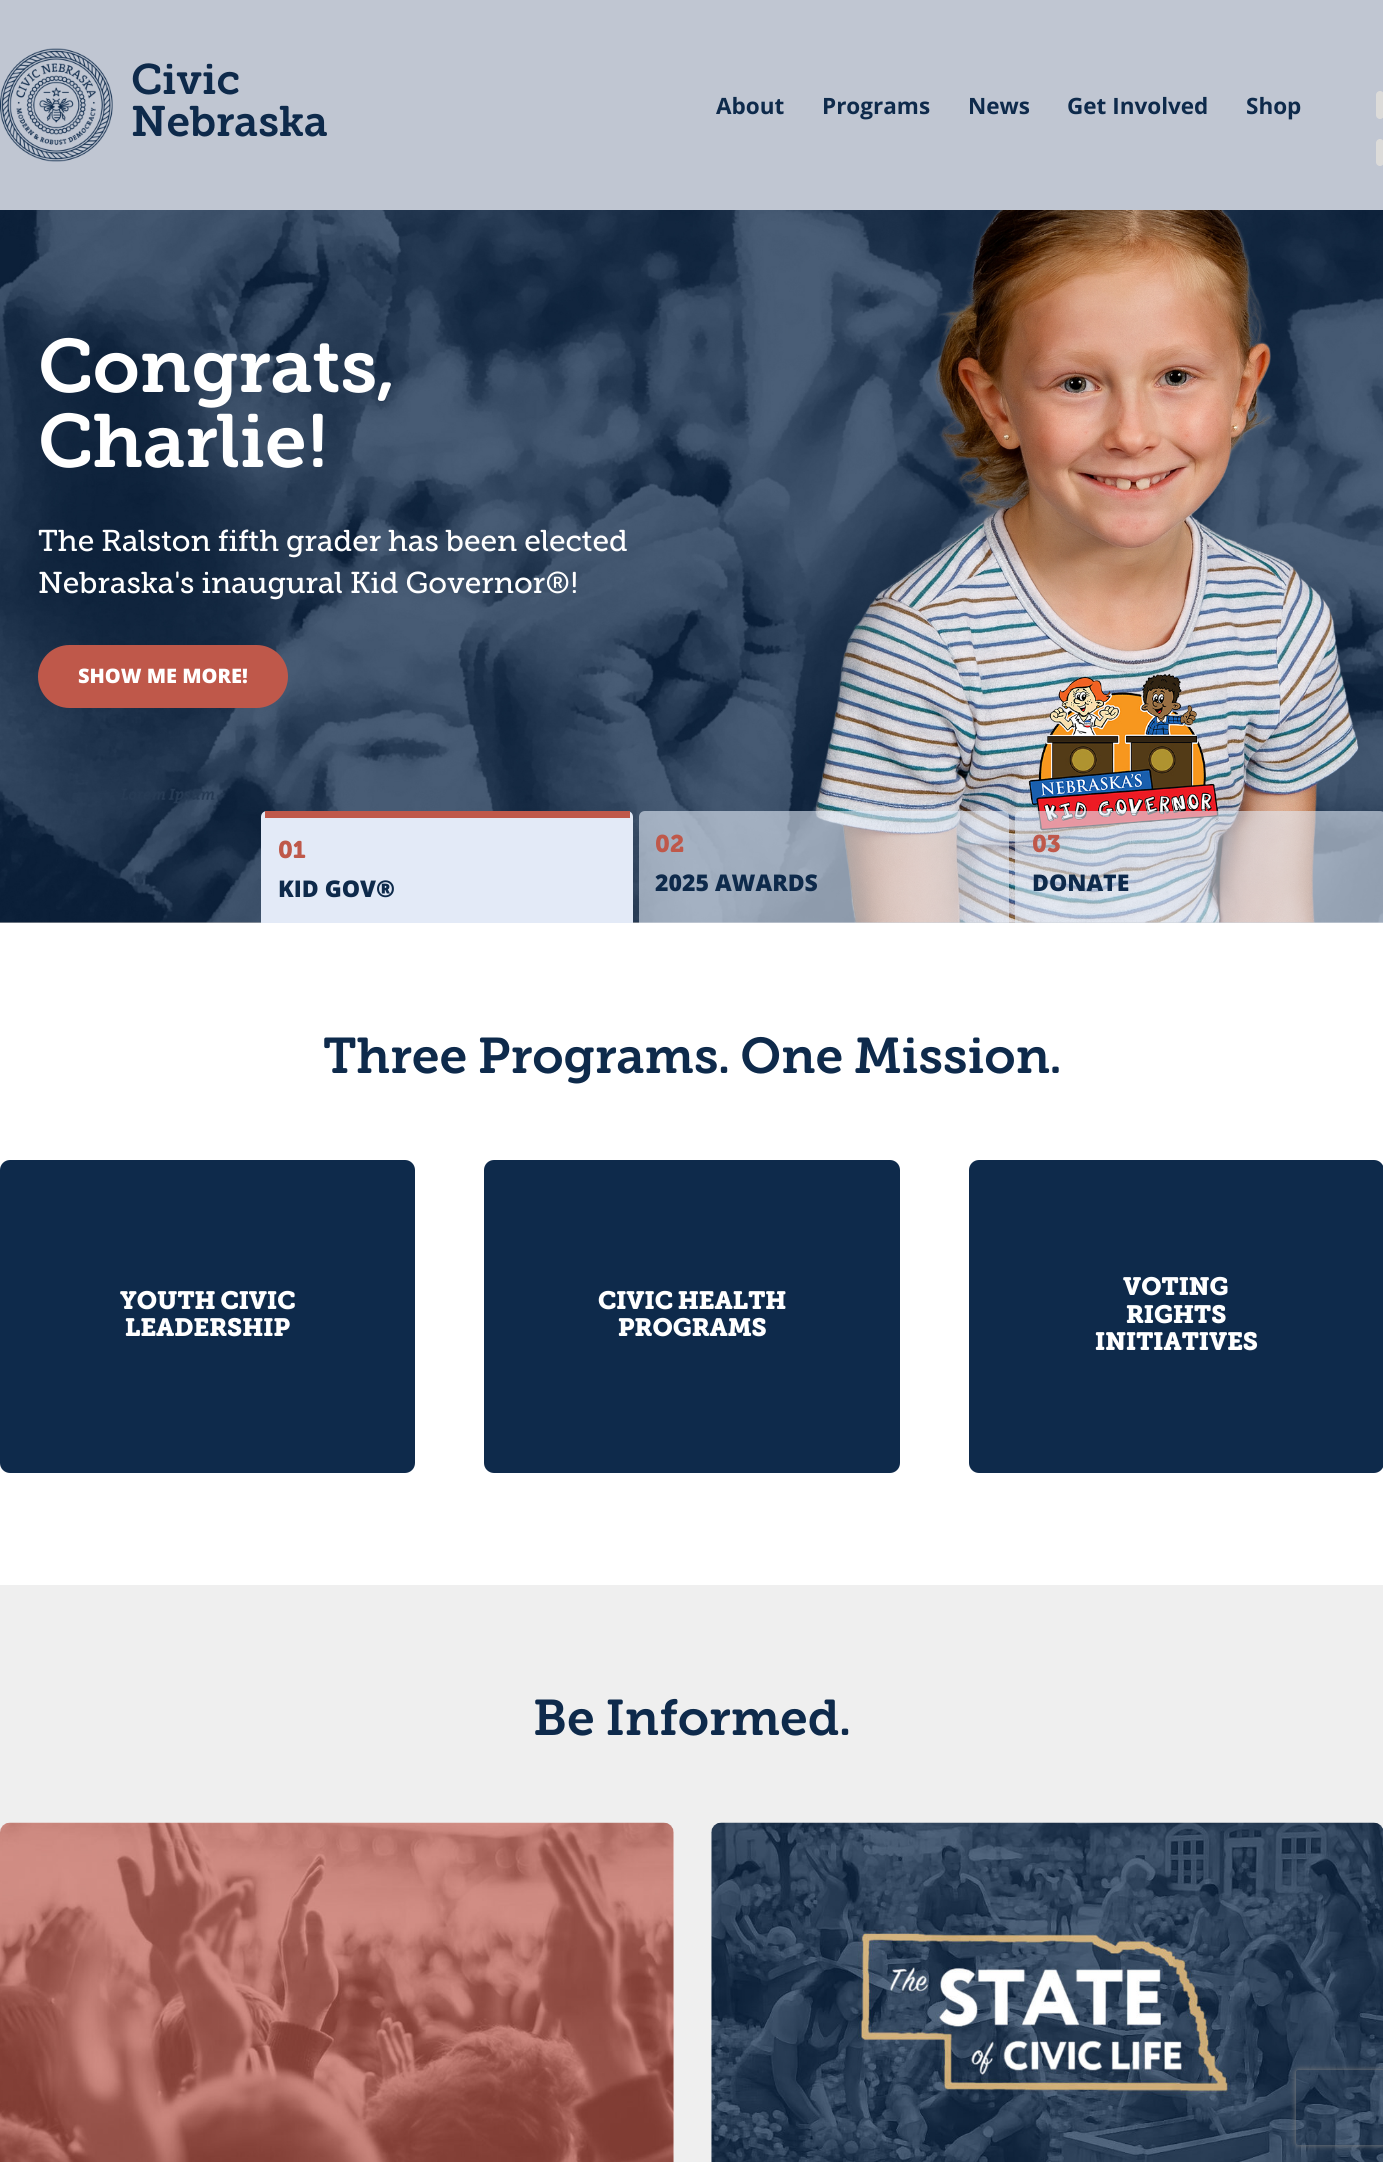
#include <cairo/cairo.h>
#include <math.h>
#include <stddef.h>

static cairo_t *cr;

static void use_color(int r, int g, int b) {
  cairo_set_source_rgb(cr, r / 255.0, g / 255.0, b / 255.0);
}

static void text(double x, double y, const char *s, const char *family, double size, int italic, int bold, int r, int g, int b) {
  cairo_select_font_face(cr, family, italic ? CAIRO_FONT_SLANT_ITALIC : CAIRO_FONT_SLANT_NORMAL,
    bold ? CAIRO_FONT_WEIGHT_BOLD : CAIRO_FONT_WEIGHT_NORMAL);
  cairo_set_font_size(cr, size);
  use_color(r, g, b);
  cairo_move_to(cr, x, y);
  cairo_show_text(cr, s);
}

static void box(double x, double y, double w, double h, int r, int g, int b) {
  use_color(r, g, b);
  cairo_rectangle(cr, x, y, w, h);
  cairo_fill(cr);
}

static void round_rect(double x, double y, double w, double h, double r) {
  cairo_new_sub_path(cr);
  cairo_arc(cr, x + w - r, y + h - r, r, 0, M_PI / 2);
  cairo_arc(cr, x + r, y + h - r, r, M_PI / 2, M_PI);
  cairo_arc(cr, x + r, y + r, r, M_PI, 1.5 * M_PI);
  cairo_arc(cr, x + w - r, y + r, r, 1.5 * M_PI, 2 * M_PI);
  cairo_close_path(cr);
}

static void shadow(double x, double y, double w, double h, double r, double blur, double alpha) {
  cairo_push_group_with_content(cr, CAIRO_CONTENT_ALPHA);
  cairo_set_operator(cr, CAIRO_OPERATOR_SOURCE);
  for (int i = 15; i >= -15 && fmin(w, h) + blur * i / 3 > 0; i -= 2) {
    double e = blur * i / 6;
    cairo_set_source_rgba(cr, 0, 0, 0, alpha * erfc((i - 1) / 8.5) / 2);
    round_rect(x - e, y - e, w + 2 * e, h + 2 * e, fmax(0, fmin(r + e + blur * .6, fmin(w, h) / 2 + e)));
    cairo_fill(cr);
  }
  cairo_pattern_t *soft = cairo_pop_group(cr);
  cairo_mask(cr, soft);
  cairo_pattern_destroy(soft);
}

static void picture(const char *path, double x, double y, double w, double h) {
  cairo_surface_t *image = cairo_image_surface_create_from_png(path);
  cairo_save(cr);
  cairo_set_source_surface(cr, image, x, y);
  cairo_rectangle(cr, x, y, w, h);
  cairo_fill(cr);
  cairo_restore(cr);
  cairo_surface_destroy(image);
}

static void draw(void) {
  use_color(255, 255, 255);
  cairo_paint(cr);
  box(0, 0, 1383, 210, 192, 198, 210);
  picture("img_01.png", 0, 48, 113, 114);
  use_color(220, 219, 217);
  round_rect(1376, 91, 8, 28, 4);
  cairo_fill(cr);
  round_rect(1376, 139, 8, 27, 4);
  cairo_fill(cr);
  box(0, 922, 1383, 1, 187, 187, 187);
  picture("img_02.png", 0, 210, 1383, 713);
  use_color(191, 88, 74);
  round_rect(39.5, 646.5, 247, 60, 30);
  cairo_fill_preserve(cr);
  cairo_set_line_width(cr, 3);
  cairo_stroke(cr);
  use_color(227, 234, 247);
  cairo_new_path(cr);
  cairo_move_to(cr, 267, 811);
  cairo_line_to(cr, 627, 811);
  cairo_curve_to(cr, 630.5, 811, 633, 813.5, 633, 817);
  cairo_line_to(cr, 633, 923);
  cairo_line_to(cr, 261, 923);
  cairo_line_to(cr, 261, 817);
  cairo_curve_to(cr, 261, 813.5, 263.5, 811, 267, 811);
  cairo_close_path(cr);
  cairo_fill(cr);
  box(265, 811, 365, 7, 191, 88, 74);
  cairo_set_source_rgba(cr, 0.89, 0.918, 0.969, 0.6);
  cairo_new_path(cr);
  cairo_move_to(cr, 645, 811);
  cairo_line_to(cr, 1003, 811);
  cairo_curve_to(cr, 1006.5, 811, 1009, 813.5, 1009, 817);
  cairo_line_to(cr, 1009, 923);
  cairo_line_to(cr, 639, 923);
  cairo_line_to(cr, 639, 817);
  cairo_curve_to(cr, 639, 813.5, 641.5, 811, 645, 811);
  cairo_close_path(cr);
  cairo_fill(cr);
  cairo_new_path(cr);
  cairo_move_to(cr, 1021, 811);
  cairo_line_to(cr, 1380, 811);
  cairo_curve_to(cr, 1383.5, 811, 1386, 813.5, 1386, 817);
  cairo_line_to(cr, 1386, 923);
  cairo_line_to(cr, 1015, 923);
  cairo_line_to(cr, 1015, 817);
  cairo_curve_to(cr, 1015, 813.5, 1017.5, 811, 1021, 811);
  cairo_close_path(cr);
  cairo_fill(cr);
  use_color(14, 42, 75);
  round_rect(0, 1160, 415, 313, 10);
  cairo_fill(cr);
  round_rect(484, 1160, 416, 313, 10);
  cairo_fill(cr);
  round_rect(969, 1160, 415, 313, 10);
  cairo_fill(cr);
  box(0, 1585, 1383, 577, 239, 239, 239);
  use_color(255, 255, 255);
  round_rect(0, 1823, 674, 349, 10);
  cairo_fill(cr);
  picture("img_03.png", 0, 1822, 674, 340);
  round_rect(711, 1823, 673, 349, 10);
  cairo_fill(cr);
  picture("img_04.png", 711, 1822, 672, 340);
  cairo_save(cr);
  cairo_set_fill_rule(cr, CAIRO_FILL_RULE_EVEN_ODD);
  cairo_new_path(cr);
  cairo_move_to(cr, 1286, 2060);
  cairo_line_to(cr, 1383, 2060);
  cairo_line_to(cr, 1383, 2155);
  cairo_line_to(cr, 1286, 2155);
  cairo_close_path(cr);
  cairo_move_to(cr, 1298.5, 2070);
  cairo_line_to(cr, 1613.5, 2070);
  cairo_curve_to(cr, 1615, 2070, 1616, 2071, 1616, 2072.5);
  cairo_line_to(cr, 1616, 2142.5);
  cairo_curve_to(cr, 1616, 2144, 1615, 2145, 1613.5, 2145);
  cairo_line_to(cr, 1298.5, 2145);
  cairo_curve_to(cr, 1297, 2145, 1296, 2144, 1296, 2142.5);
  cairo_line_to(cr, 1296, 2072.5);
  cairo_curve_to(cr, 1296, 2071, 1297, 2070, 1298.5, 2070);
  cairo_close_path(cr);
  cairo_clip(cr);
  use_color(128, 128, 128);
  shadow(1296, 2070, 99, 75, 2.5, 3, 1);
  cairo_restore(cr);
  text(131, 94, "Civic", "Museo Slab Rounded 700 SemiBold", 42.5, 0, 0, 14, 42, 75);
  text(131, 136, "Nebraska", "Museo Slab Rounded 700 SemiBold", 42.5, 0, 0, 14, 42, 75);
  text(716, 114, "About", "Open Sans", 22.5, 0, 1, 14, 42, 75);
  text(822, 114, "Programs", "Open Sans", 22.5, 0, 1, 14, 42, 75);
  text(968, 114, "News", "Open Sans", 22.5, 0, 1, 14, 42, 75);
  text(1067, 114, "Get Involved", "Open Sans", 22.5, 0, 1, 14, 42, 75);
  text(1246, 114, "Shop", "Open Sans", 22.5, 0, 1, 14, 42, 75);
  text(38, 392, "Congrats,", "Museo Slab Rounded 700 SemiBold", 75, 0, 0, 255, 255, 255);
  text(38, 467, "Charlie!", "Museo Slab Rounded 700 SemiBold", 75, 0, 0, 255, 255, 255);
  text(38, 551, "The Ralston fifth grader has been elected", "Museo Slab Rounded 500", 30, 0, 0, 255, 255, 255);
  text(38, 593, "Nebraska's inaugural Kid Governor®!", "Museo Slab Rounded 500", 30, 0, 0, 255, 255, 255);
  text(78, 683, "SHOW ME MORE!", "Open Sans ExtraBold", 20, 0, 0, 255, 255, 255);
  text(278, 858, "01", "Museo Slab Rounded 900 Black", 24, 0, 0, 191, 88, 74);
  text(278, 897, "KID GOV®", "Open Sans ExtraBold", 23, 0, 0, 14, 42, 75);
  text(655, 852, "02", "Museo Slab Rounded 900 Black", 24, 0, 0, 191, 88, 74);
  text(655, 891, "2025 AWARDS", "Open Sans ExtraBold", 23, 0, 0, 14, 42, 75);
  text(1032, 852, "03", "Museo Slab Rounded 900 Black", 24, 0, 0, 191, 88, 74);
  text(1032, 891, "DONATE", "Open Sans ExtraBold", 23, 0, 0, 14, 42, 75);
  text(323, 1073, "Three Programs. One Mission.", "Museo Slab Rounded 700 SemiBold", 50, 0, 0, 14, 42, 75);
  text(120, 1309, "YOUTH CIVIC", "Museo Slab Rounded 900 Black", 25, 0, 0, 255, 255, 255);
  text(125, 1336, "LEADERSHIP", "Museo Slab Rounded 900 Black", 25, 0, 0, 255, 255, 255);
  text(598, 1309, "CIVIC HEALTH", "Museo Slab Rounded 900 Black", 25, 0, 0, 255, 255, 255);
  text(618, 1336, "PROGRAMS", "Museo Slab Rounded 900 Black", 25, 0, 0, 255, 255, 255);
  text(1123, 1295, "VOTING", "Museo Slab Rounded 900 Black", 25, 0, 0, 255, 255, 255);
  text(1126, 1323, "RIGHTS", "Museo Slab Rounded 900 Black", 25, 0, 0, 255, 255, 255);
  text(1095, 1350, "INITIATIVES", "Museo Slab Rounded 900 Black", 25, 0, 0, 255, 255, 255);
  text(533, 1735, "Be Informed.", "Museo Slab Rounded 700 SemiBold", 50, 0, 0, 14, 42, 75);
}

int main(void) {
  cairo_surface_t *surface = cairo_image_surface_create(CAIRO_FORMAT_RGB24, 1383, 2162);
  cr = cairo_create(surface);
  cairo_font_options_t *options = cairo_font_options_create();
  cairo_font_options_set_hint_metrics(options, CAIRO_HINT_METRICS_OFF);
  cairo_font_options_set_hint_style(options, CAIRO_HINT_STYLE_NONE);
  cairo_set_font_options(cr, options);
  cairo_set_miter_limit(cr, 4);
  draw();
  cairo_surface_write_to_png(surface, "out.png");
  cairo_font_options_destroy(options);
  cairo_destroy(cr);
  cairo_surface_destroy(surface);
  return 0;
}
